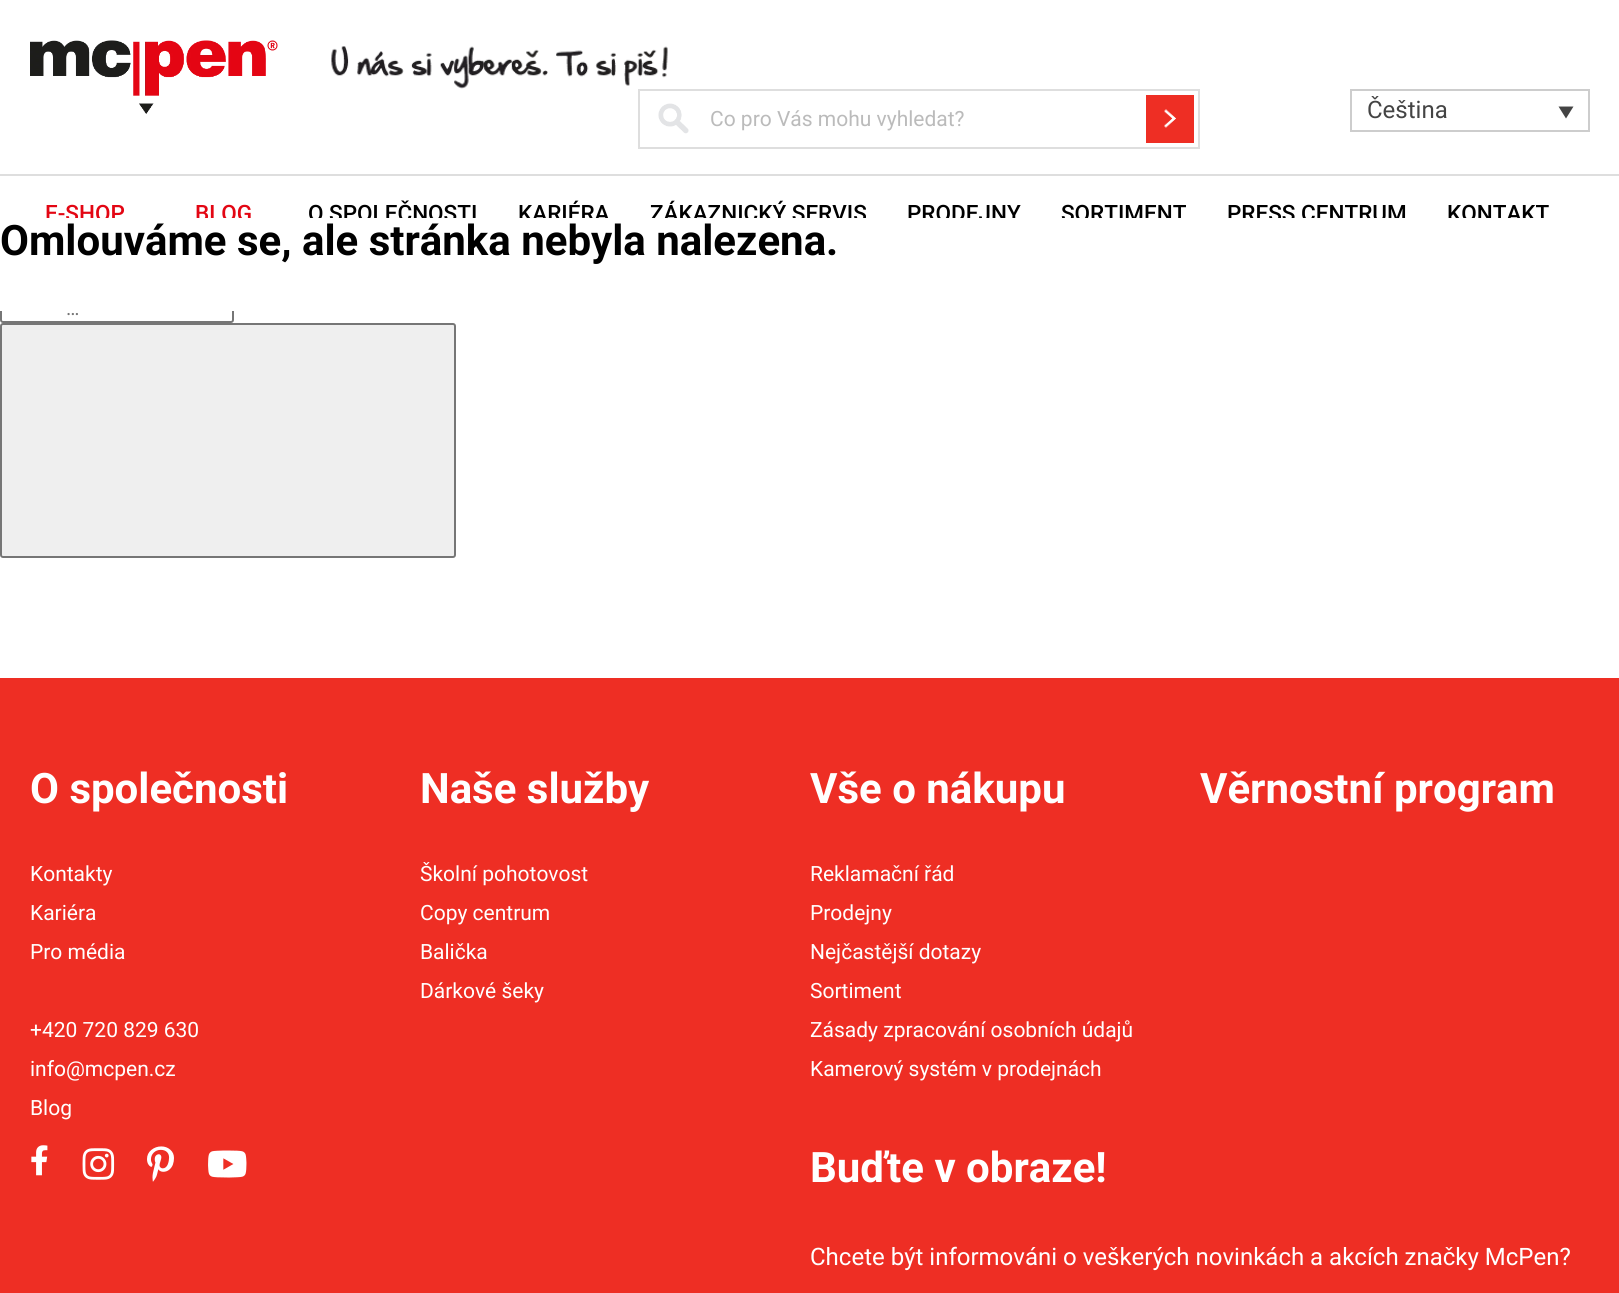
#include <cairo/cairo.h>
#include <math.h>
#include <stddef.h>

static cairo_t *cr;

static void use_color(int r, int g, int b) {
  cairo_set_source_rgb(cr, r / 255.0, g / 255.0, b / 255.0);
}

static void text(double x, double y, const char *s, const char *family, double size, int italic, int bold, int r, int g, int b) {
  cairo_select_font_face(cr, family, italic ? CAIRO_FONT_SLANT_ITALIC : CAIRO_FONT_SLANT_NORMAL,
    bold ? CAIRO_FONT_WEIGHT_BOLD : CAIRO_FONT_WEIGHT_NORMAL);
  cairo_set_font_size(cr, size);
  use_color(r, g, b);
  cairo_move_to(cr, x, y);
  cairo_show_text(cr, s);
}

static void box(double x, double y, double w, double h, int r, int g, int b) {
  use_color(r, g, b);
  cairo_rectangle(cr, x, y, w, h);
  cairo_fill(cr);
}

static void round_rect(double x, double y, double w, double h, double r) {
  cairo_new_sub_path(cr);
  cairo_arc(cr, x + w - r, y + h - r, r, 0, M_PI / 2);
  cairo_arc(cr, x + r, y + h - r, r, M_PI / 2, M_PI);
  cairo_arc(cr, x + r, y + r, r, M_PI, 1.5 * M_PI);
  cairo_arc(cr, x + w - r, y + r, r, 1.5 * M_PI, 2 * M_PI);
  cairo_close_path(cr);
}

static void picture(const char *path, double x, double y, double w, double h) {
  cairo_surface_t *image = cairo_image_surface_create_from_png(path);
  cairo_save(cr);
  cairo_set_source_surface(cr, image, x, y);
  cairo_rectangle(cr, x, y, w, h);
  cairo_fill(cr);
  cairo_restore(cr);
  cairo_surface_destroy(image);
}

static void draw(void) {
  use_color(255, 255, 255);
  cairo_paint(cr);
  box(0, 174, 1619, 2, 222, 222, 222);
  picture("img_01.png", 30, 40, 248, 74);
  picture("img_02.png", 331, 46, 337, 43);
  picture("img_03.png", 658, 103, 31, 31);
  cairo_rectangle(cr, 639, 90, 560, 58);
  cairo_stroke(cr);
  box(1146, 95, 48, 48, 238, 46, 36);
  picture("img_04.png", 1164, 109, 12, 19);
  cairo_rectangle(cr, 1351, 90, 238, 41);
  use_color(205, 205, 205);
  cairo_stroke(cr);
  use_color(68, 68, 68);
  cairo_new_path(cr);
  cairo_move_to(cr, 1558.5, 106.5);
  cairo_line_to(cr, 1573.5, 106.5);
  cairo_line_to(cr, 1566, 118.5);
  cairo_close_path(cr);
  cairo_fill(cr);
  round_rect(1, 295, 232, 27, 2);
  use_color(118, 118, 118);
  cairo_stroke(cr);
  use_color(239, 239, 239);
  round_rect(1, 324, 454, 233, 2);
  cairo_fill_preserve(cr);
  use_color(118, 118, 118);
  cairo_stroke(cr);
  box(0, 678, 1619, 615, 238, 46, 36);
  picture("img_05.png", 31, 1145, 17, 31);
  picture("img_06.png", 82, 1148, 33, 32);
  picture("img_07.png", 147, 1146, 27, 36);
  picture("img_08.png", 208, 1150, 39, 28);
  text(710, 126, "Co pro Vás mohu vyhledat?", "Roboto", 21, 0, 0, 187, 187, 187);
  text(1367, 118, "Čeština", "Roboto", 24, 0, 0, 68, 68, 68);
  text(45, 221, "E-SHOP", "Roboto Medium", 22.5, 0, 0, 227, 6, 19);
  text(195, 221, "BLOG", "Roboto Medium", 22.5, 0, 0, 227, 6, 19);
  text(308, 221, "O SPOLEČNOSTI", "Roboto Medium", 22.5, 0, 0, 0, 0, 0);
  text(518, 221, "KARIÉRA", "Roboto Medium", 22.5, 0, 0, 0, 0, 0);
  text(650, 221, "ZÁKAZNICKÝ SERVIS", "Roboto Medium", 22.5, 0, 0, 0, 0, 0);
  text(907, 221, "PRODEJNY", "Roboto Medium", 22.5, 0, 0, 0, 0, 0);
  text(1061, 221, "SORTIMENT", "Roboto Medium", 22.5, 0, 0, 0, 0, 0);
  text(1227, 221, "PRESS CENTRUM", "Roboto Medium", 22.5, 0, 0, 0, 0, 0);
  text(1447, 221, "KONTAKT", "Roboto Medium", 22.5, 0, 0, 0, 0, 0);
  box(0, 218, 1545, 93, 255, 255, 255);
  text(0, 255, "Omlouváme se, ale stránka nebyla nalezena.", "Roboto", 42, 0, 1, 0, 0, 0);
  text(66, 315, "…", "Roboto", 20, 0, 0, 117, 117, 117);
  text(30, 803, "O společnosti", "Roboto", 42, 0, 1, 255, 255, 255);
  text(30, 881, "Kontakty", "Roboto", 21, 0, 0, 255, 255, 255);
  text(30, 920, "Kariéra", "Roboto", 21, 0, 0, 255, 255, 255);
  text(30, 959, "Pro média", "Roboto", 21, 0, 0, 255, 255, 255);
  text(30, 1037, "+420 720 829 630", "Roboto", 21, 0, 0, 255, 255, 255);
  text(30, 1076, "info@mcpen.cz", "Roboto", 21, 0, 0, 255, 255, 255);
  text(30, 1115, "Blog", "Roboto", 21, 0, 0, 255, 255, 255);
  text(420, 803, "Naše služby", "Roboto", 42, 0, 1, 255, 255, 255);
  text(420, 881, "Školní pohotovost", "Roboto", 21, 0, 0, 255, 255, 255);
  text(420, 920, "Copy centrum", "Roboto", 21, 0, 0, 255, 255, 255);
  text(420, 959, "Balička", "Roboto", 21, 0, 0, 255, 255, 255);
  text(420, 998, "Dárkové šeky", "Roboto", 21, 0, 0, 255, 255, 255);
  text(810, 803, "Vše o nákupu", "Roboto", 42, 0, 1, 255, 255, 255);
  text(810, 881, "Reklamační řád", "Roboto", 21, 0, 0, 255, 255, 255);
  text(810, 920, "Prodejny", "Roboto", 21, 0, 0, 255, 255, 255);
  text(810, 959, "Nejčastější dotazy", "Roboto", 21, 0, 0, 255, 255, 255);
  text(810, 998, "Sortiment", "Roboto", 21, 0, 0, 255, 255, 255);
  text(810, 1037, "Zásady zpracování osobních údajů", "Roboto", 21, 0, 0, 255, 255, 255);
  text(810, 1076, "Kamerový systém v prodejnách", "Roboto", 21, 0, 0, 255, 255, 255);
  text(1200, 803, "Věrnostní program", "Roboto", 42, 0, 1, 255, 255, 255);
  text(810, 1182, "Buďte v obraze!", "Roboto", 42, 0, 1, 255, 255, 255);
  text(810, 1265, "Chcete být informováni o veškerých novinkách a akcích značky McPen?", "Roboto", 24, 0, 0, 255, 255, 255);
}

int main(void) {
  cairo_surface_t *surface = cairo_image_surface_create(CAIRO_FORMAT_RGB24, 1619, 1293);
  cr = cairo_create(surface);
  cairo_font_options_t *options = cairo_font_options_create();
  cairo_font_options_set_hint_metrics(options, CAIRO_HINT_METRICS_OFF);
  cairo_font_options_set_hint_style(options, CAIRO_HINT_STYLE_NONE);
  cairo_set_font_options(cr, options);
  cairo_set_miter_limit(cr, 4);
  draw();
  cairo_surface_write_to_png(surface, "out.png");
  cairo_font_options_destroy(options);
  cairo_destroy(cr);
  cairo_surface_destroy(surface);
  return 0;
}
